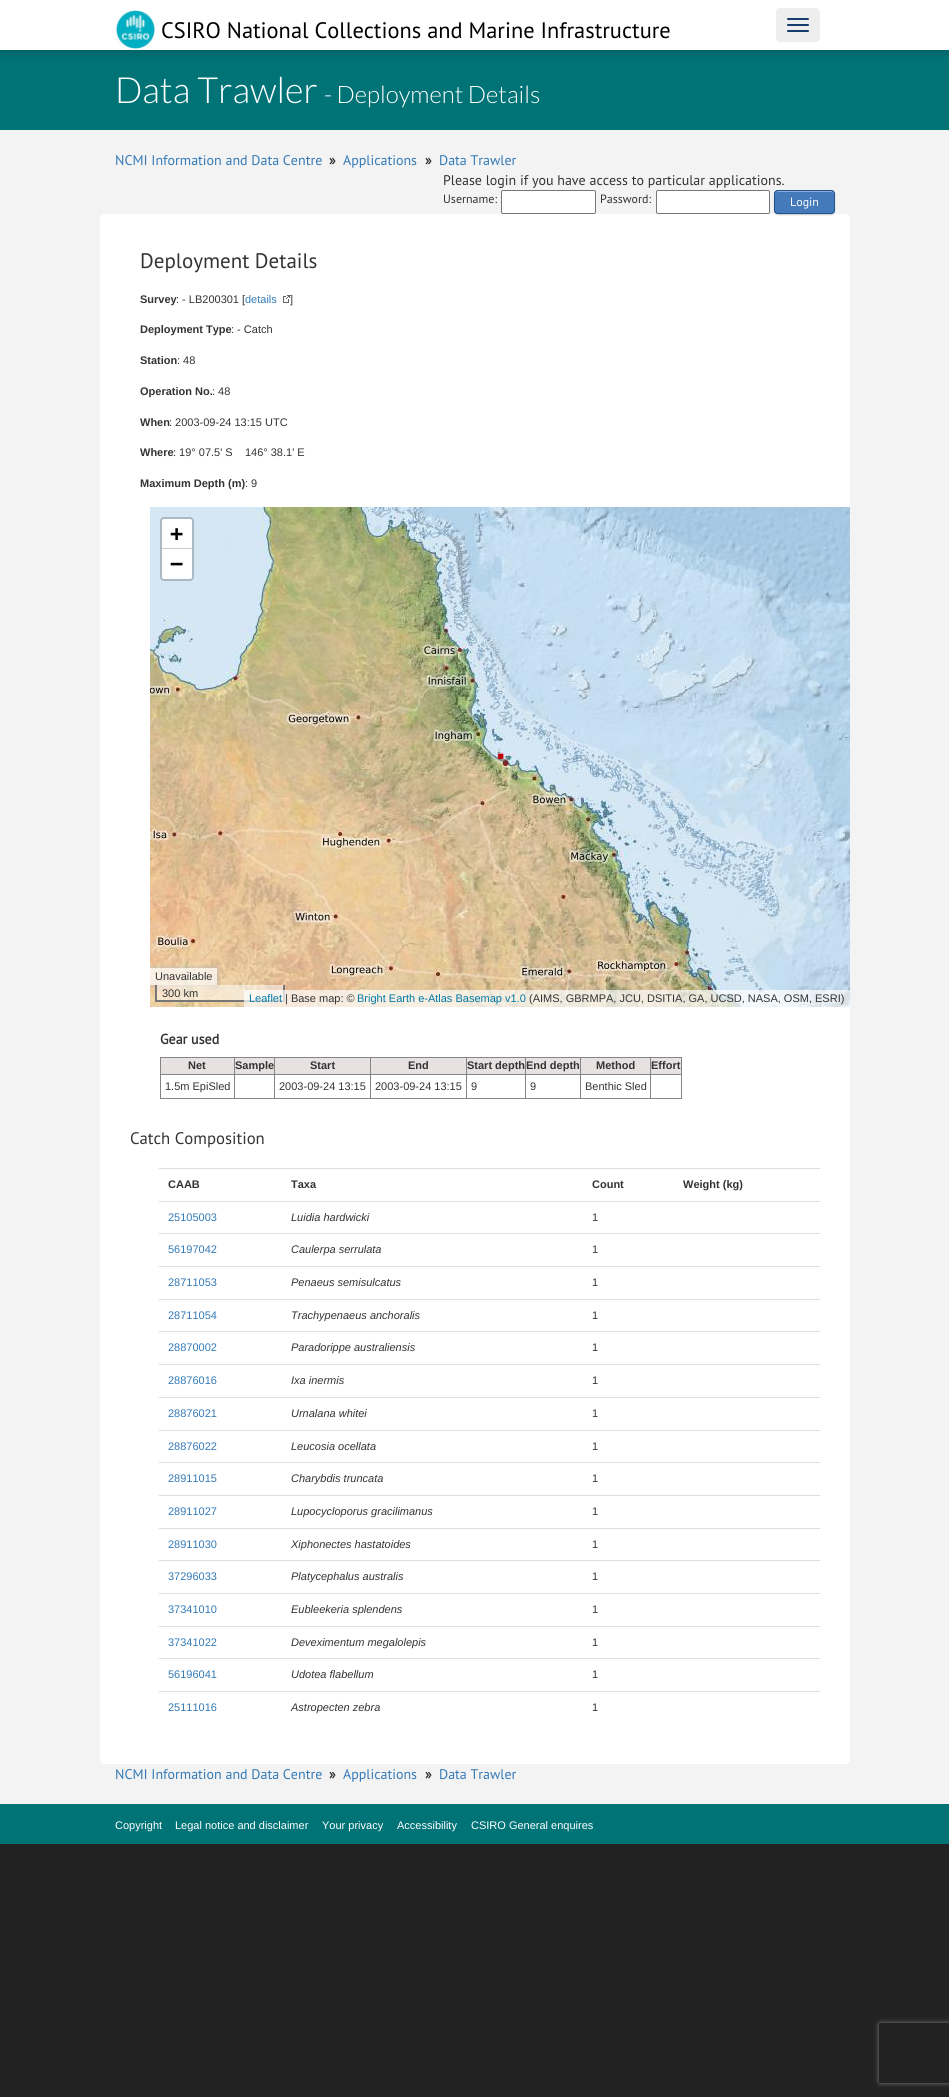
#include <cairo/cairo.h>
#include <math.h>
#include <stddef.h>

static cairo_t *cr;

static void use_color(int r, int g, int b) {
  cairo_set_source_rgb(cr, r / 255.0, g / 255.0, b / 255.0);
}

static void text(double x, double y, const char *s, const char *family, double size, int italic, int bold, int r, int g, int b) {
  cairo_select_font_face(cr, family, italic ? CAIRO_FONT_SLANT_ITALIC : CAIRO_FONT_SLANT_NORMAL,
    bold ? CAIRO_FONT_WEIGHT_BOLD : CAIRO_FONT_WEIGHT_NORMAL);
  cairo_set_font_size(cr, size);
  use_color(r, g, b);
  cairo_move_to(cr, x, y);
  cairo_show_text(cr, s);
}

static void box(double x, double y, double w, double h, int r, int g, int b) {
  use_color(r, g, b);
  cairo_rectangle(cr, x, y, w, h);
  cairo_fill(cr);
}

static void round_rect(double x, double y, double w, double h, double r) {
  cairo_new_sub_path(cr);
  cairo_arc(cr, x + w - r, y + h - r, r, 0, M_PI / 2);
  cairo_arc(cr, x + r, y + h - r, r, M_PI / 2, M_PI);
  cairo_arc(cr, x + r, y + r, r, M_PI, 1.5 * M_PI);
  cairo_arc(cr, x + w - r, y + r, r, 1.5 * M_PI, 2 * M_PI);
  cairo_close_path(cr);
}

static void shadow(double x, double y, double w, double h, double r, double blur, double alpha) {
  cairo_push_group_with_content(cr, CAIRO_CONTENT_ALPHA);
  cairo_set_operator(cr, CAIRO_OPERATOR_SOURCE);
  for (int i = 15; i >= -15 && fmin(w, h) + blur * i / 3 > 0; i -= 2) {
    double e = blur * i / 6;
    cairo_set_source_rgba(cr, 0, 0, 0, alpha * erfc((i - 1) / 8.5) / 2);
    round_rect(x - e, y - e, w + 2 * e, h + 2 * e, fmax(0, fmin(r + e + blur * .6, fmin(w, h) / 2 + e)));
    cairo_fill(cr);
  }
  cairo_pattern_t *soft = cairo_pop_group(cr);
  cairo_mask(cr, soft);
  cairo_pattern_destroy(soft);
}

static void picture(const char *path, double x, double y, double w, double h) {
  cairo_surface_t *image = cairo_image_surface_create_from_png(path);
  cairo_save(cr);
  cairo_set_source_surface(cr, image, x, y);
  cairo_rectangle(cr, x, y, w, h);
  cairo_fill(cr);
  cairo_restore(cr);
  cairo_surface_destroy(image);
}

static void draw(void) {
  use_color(34, 34, 34);
  cairo_paint(cr);
  box(0, 130, 949, 1674, 243, 243, 243);
  box(0, 50, 949, 80, 0, 115, 119);
  use_color(0, 0, 0);
  shadow(0, 2, 949, 50, 0, 5, 0.2);
  box(0, 0, 949, 50, 255, 255, 255);
  picture("img_01.png", 116, 10, 39, 39);
  use_color(238, 238, 238);
  round_rect(776, 8, 44, 34, 4);
  cairo_fill(cr);
  use_color(21, 61, 107);
  round_rect(787, 18, 22, 2, 1);
  cairo_fill(cr);
  round_rect(787, 24, 22, 2, 1);
  cairo_fill(cr);
  round_rect(787, 30, 22, 2, 1);
  cairo_fill(cr);
  use_color(255, 255, 255);
  round_rect(501.5, 190.5, 94, 23, 1.5);
  cairo_fill_preserve(cr);
  use_color(118, 118, 118);
  cairo_set_line_width(cr, 1);
  cairo_stroke(cr);
  use_color(255, 255, 255);
  round_rect(656.5, 190.5, 113, 23, 1.5);
  cairo_fill_preserve(cr);
  use_color(118, 118, 118);
  cairo_stroke(cr);
  use_color(255, 255, 255);
  round_rect(100, 214, 750, 1550, 4);
  cairo_fill(cr);
  use_color(0, 0, 0);
  shadow(774, 191, 61, 24, 4, 0.5, 0.2);
  use_color(68, 121, 186);
  round_rect(774, 190, 61, 24, 4);
  cairo_fill(cr);
  use_color(143, 175, 214);
  cairo_new_path(cr);
  cairo_move_to(cr, 778, 192);
  cairo_line_to(cr, 831, 192);
  cairo_curve_to(cr, 833, 192, 834, 193, 834, 195);
  cairo_curve_to(cr, 834, 189, 827, 191, 822, 191);
  cairo_line_to(cr, 787, 191);
  cairo_curve_to(cr, 782, 191, 775, 189, 775, 195);
  cairo_curve_to(cr, 775, 193, 776, 192, 778, 192);
  cairo_close_path(cr);
  cairo_fill(cr);
  round_rect(774.5, 190.5, 60, 23, 3.5);
  use_color(32, 83, 141);
  cairo_stroke(cr);
  cairo_save(cr);
  cairo_set_fill_rule(cr, CAIRO_FILL_RULE_EVEN_ODD);
  cairo_new_path(cr);
  cairo_move_to(cr, 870, 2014);
  cairo_line_to(cr, 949, 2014);
  cairo_line_to(cr, 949, 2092);
  cairo_line_to(cr, 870, 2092);
  cairo_close_path(cr);
  cairo_move_to(cr, 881, 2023);
  cairo_line_to(cr, 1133, 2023);
  cairo_curve_to(cr, 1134, 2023, 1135, 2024, 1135, 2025);
  cairo_line_to(cr, 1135, 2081);
  cairo_curve_to(cr, 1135, 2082, 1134, 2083, 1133, 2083);
  cairo_line_to(cr, 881, 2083);
  cairo_curve_to(cr, 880, 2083, 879, 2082, 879, 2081);
  cairo_line_to(cr, 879, 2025);
  cairo_curve_to(cr, 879, 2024, 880, 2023, 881, 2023);
  cairo_close_path(cr);
  cairo_clip(cr);
  use_color(128, 128, 128);
  shadow(879, 2023, 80, 60, 2, 2.5, 1);
  cairo_restore(cr);
  picture("img_02.png", 283, 295, 7, 8);
  picture("img_03.png", 150, 507, 76, 131);
  picture("img_04.png", 226, 507, 256, 131);
  picture("img_05.png", 482, 507, 256, 131);
  picture("img_06.png", 738, 507, 112, 131);
  picture("img_07.png", 150, 638, 76, 256);
  picture("img_08.png", 226, 638, 256, 256);
  picture("img_09.png", 482, 638, 256, 256);
  picture("img_10.png", 738, 638, 112, 256);
  picture("img_11.png", 150, 894, 76, 113);
  picture("img_12.png", 226, 894, 256, 113);
  picture("img_13.png", 482, 894, 256, 113);
  picture("img_14.png", 738, 894, 112, 113);
  picture("img_15.png", 497, 753, 7, 7);
  round_rect(161, 518, 32, 62, 3);
  cairo_set_source_rgba(cr, 0, 0, 0, 0.2);
  cairo_set_line_width(cr, 2);
  cairo_stroke(cr);
  use_color(255, 255, 255);
  cairo_new_path(cr);
  cairo_move_to(cr, 164, 519);
  cairo_line_to(cr, 190, 519);
  cairo_curve_to(cr, 191, 519, 192, 520, 192, 521);
  cairo_line_to(cr, 192, 549);
  cairo_line_to(cr, 162, 549);
  cairo_line_to(cr, 162, 521);
  cairo_curve_to(cr, 162, 520, 163, 519, 164, 519);
  cairo_close_path(cr);
  cairo_fill(cr);
  box(162, 548, 30, 1, 204, 204, 204);
  use_color(255, 255, 255);
  cairo_new_path(cr);
  cairo_move_to(cr, 162, 549);
  cairo_line_to(cr, 192, 549);
  cairo_line_to(cr, 192, 577);
  cairo_curve_to(cr, 192, 578, 191, 579, 190, 579);
  cairo_line_to(cr, 164, 579);
  cairo_curve_to(cr, 163, 579, 162, 578, 162, 577);
  cairo_close_path(cr);
  cairo_fill(cr);
  cairo_save(cr);
  cairo_rectangle(cr, 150, 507, 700, 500);
  cairo_clip(cr);
  cairo_set_fill_rule(cr, CAIRO_FILL_RULE_EVEN_ODD);
  cairo_new_path(cr);
  cairo_move_to(cr, 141, 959);
  cairo_line_to(cr, 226, 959);
  cairo_line_to(cr, 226, 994);
  cairo_line_to(cr, 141, 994);
  cairo_close_path(cr);
  cairo_move_to(cr, 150, 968);
  cairo_line_to(cr, 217, 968);
  cairo_line_to(cr, 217, 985);
  cairo_line_to(cr, 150, 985);
  cairo_close_path(cr);
  cairo_clip(cr);
  use_color(187, 187, 187);
  shadow(150, 968, 67, 17, 0, 2.5, 1);
  cairo_restore(cr);
  cairo_set_source_rgba(cr, 1, 1, 1, 0.7);
  cairo_rectangle(cr, 150, 968, 67, 17);
  cairo_fill(cr);
  cairo_set_source_rgba(cr, 1, 1, 1, 0.5);
  cairo_rectangle(cr, 157, 985, 126, 15);
  cairo_fill(cr);
  box(283, 985, 2, 17, 119, 119, 119);
  box(155, 1000, 130, 2, 119, 119, 119);
  box(155, 985, 2, 17, 119, 119, 119);
  cairo_set_source_rgba(cr, 1, 1, 1, 0.7);
  cairo_rectangle(cr, 244, 990, 606, 17);
  cairo_fill(cr);
  box(161, 1058, 73, 16, 232, 225, 225);
  box(650, 1057, 32, 1, 133, 133, 133);
  box(650, 1074, 32, 1, 133, 133, 133);
  box(681, 1074, 1, 25, 133, 133, 133);
  box(650, 1098, 32, 1, 133, 133, 133);
  box(650, 1074, 1, 25, 133, 133, 133);
  box(580, 1074, 71, 1, 133, 133, 133);
  box(650, 1057, 1, 18, 133, 133, 133);
  box(580, 1057, 71, 1, 133, 133, 133);
  box(580, 1098, 71, 1, 133, 133, 133);
  box(580, 1074, 1, 25, 133, 133, 133);
  box(525, 1074, 56, 1, 133, 133, 133);
  box(580, 1057, 1, 18, 133, 133, 133);
  box(525, 1057, 56, 1, 133, 133, 133);
  box(525, 1098, 56, 1, 133, 133, 133);
  box(525, 1074, 1, 25, 133, 133, 133);
  box(466, 1074, 60, 1, 133, 133, 133);
  box(525, 1057, 1, 18, 133, 133, 133);
  box(466, 1057, 60, 1, 133, 133, 133);
  box(466, 1098, 60, 1, 133, 133, 133);
  box(466, 1074, 1, 25, 133, 133, 133);
  box(370, 1074, 97, 1, 133, 133, 133);
  box(466, 1057, 1, 18, 133, 133, 133);
  box(370, 1057, 97, 1, 133, 133, 133);
  box(370, 1098, 97, 1, 133, 133, 133);
  box(370, 1074, 1, 25, 133, 133, 133);
  box(274, 1074, 97, 1, 133, 133, 133);
  box(370, 1057, 1, 18, 133, 133, 133);
  box(274, 1057, 97, 1, 133, 133, 133);
  box(274, 1098, 97, 1, 133, 133, 133);
  box(274, 1074, 1, 25, 133, 133, 133);
  box(234, 1074, 41, 1, 133, 133, 133);
  box(274, 1057, 1, 18, 133, 133, 133);
  box(234, 1057, 41, 1, 133, 133, 133);
  box(234, 1098, 41, 1, 133, 133, 133);
  box(234, 1074, 1, 25, 133, 133, 133);
  box(160, 1074, 75, 1, 133, 133, 133);
  box(234, 1057, 1, 18, 133, 133, 133);
  box(160, 1057, 75, 1, 133, 133, 133);
  box(160, 1098, 75, 1, 133, 133, 133);
  box(160, 1074, 1, 25, 133, 133, 133);
  box(160, 1057, 1, 18, 133, 133, 133);
  box(235, 1058, 39, 16, 232, 225, 225);
  box(275, 1058, 95, 16, 232, 225, 225);
  box(371, 1058, 95, 16, 232, 225, 225);
  box(467, 1058, 58, 16, 232, 225, 225);
  box(526, 1058, 54, 16, 232, 225, 225);
  box(581, 1058, 69, 16, 232, 225, 225);
  box(651, 1058, 30, 16, 232, 225, 225);
  box(681, 1057, 1, 18, 133, 133, 133);
  box(159, 1168, 661, 1, 221, 221, 221);
  box(159, 1201, 661, 1, 221, 221, 221);
  box(159, 1233, 661, 1, 221, 221, 221);
  box(159, 1266, 661, 1, 221, 221, 221);
  box(159, 1299, 661, 1, 221, 221, 221);
  box(159, 1331, 661, 1, 221, 221, 221);
  box(159, 1364, 661, 1, 221, 221, 221);
  box(159, 1397, 661, 1, 221, 221, 221);
  box(159, 1430, 661, 1, 221, 221, 221);
  box(159, 1462, 661, 1, 221, 221, 221);
  box(159, 1495, 661, 1, 221, 221, 221);
  box(159, 1528, 661, 1, 221, 221, 221);
  box(159, 1560, 661, 1, 221, 221, 221);
  box(159, 1593, 661, 1, 221, 221, 221);
  box(159, 1626, 661, 1, 221, 221, 221);
  box(159, 1658, 661, 1, 221, 221, 221);
  box(159, 1691, 661, 1, 221, 221, 221);
  box(0, 1804, 949, 40, 0, 115, 119);
  text(161, 38, "CSIRO National Collections and Marine Infrastructure", "PT Sans", 22.4, 0, 0, 0, 0, 0);
  text(115, 103, "Data Trawler", "Lato Light", 36, 0, 0, 255, 255, 255);
  text(324, 103, "- Deployment Details", "Lato Light", 24, 0, 0, 255, 255, 255);
  text(115, 165, "NCMI Information and Data Centre", "PT Sans", 14, 0, 0, 51, 122, 183);
  text(329, 165, "»", "PT Sans", 14, 0, 1, 51, 51, 51);
  text(343, 165, "Applications", "PT Sans", 14, 0, 0, 51, 122, 183);
  text(425, 165, "»", "PT Sans", 14, 0, 1, 51, 51, 51);
  text(439, 165, "Data Trawler", "PT Sans", 14, 0, 0, 51, 122, 183);
  text(443, 185, "Please login if you have access to particular applications.", "PT Sans", 14, 0, 0, 51, 51, 51);
  text(443, 203, "Username:", "PT Sans", 12, 0, 0, 51, 51, 51);
  text(600, 203, "Password:", "PT Sans", 12, 0, 0, 51, 51, 51);
  text(790, 206, "Login", "PT Sans", 12, 0, 0, 255, 255, 255);
  text(140, 268, "Deployment Details", "PT Sans", 21, 0, 0, 51, 51, 51);
  text(140, 303, "Survey", "Liberation Sans", 11, 0, 1, 51, 51, 51);
  text(176, 303, ": - LB200301 [", "Liberation Sans", 11, 0, 0, 51, 51, 51);
  text(245, 303, "details", "Liberation Sans", 11, 0, 0, 51, 122, 183);
  text(290, 303, "]", "Liberation Sans", 11, 0, 0, 51, 51, 51);
  text(140, 333, "Deployment Type", "Liberation Sans", 11, 0, 1, 51, 51, 51);
  text(231, 333, ": - Catch", "Liberation Sans", 11, 0, 0, 51, 51, 51);
  text(140, 364, "Station", "Liberation Sans", 11, 0, 1, 51, 51, 51);
  text(177, 364, ": 48", "Liberation Sans", 11, 0, 0, 51, 51, 51);
  text(140, 395, "Operation No.", "Liberation Sans", 11, 0, 1, 51, 51, 51);
  text(212, 395, ": 48", "Liberation Sans", 11, 0, 0, 51, 51, 51);
  text(140, 426, "When", "Liberation Sans", 11, 0, 1, 51, 51, 51);
  text(169, 426, ": 2003-09-24 13:15 UTC", "Liberation Sans", 11, 0, 0, 51, 51, 51);
  text(140, 456, "Where", "Liberation Sans", 11, 0, 1, 51, 51, 51);
  text(173, 456, ": 19° 07.5' S    146° 38.1' E", "Liberation Sans", 11, 0, 0, 51, 51, 51);
  text(140, 487, "Maximum Depth (m)", "Liberation Sans", 11, 0, 1, 51, 51, 51);
  text(245, 487, ": 9", "Liberation Sans", 11, 0, 0, 51, 51, 51);
  text(170, 541, "+", "DejaVu Sans Mono", 22, 0, 1, 0, 0, 0);
  text(170, 571, "−", "DejaVu Sans Mono", 22, 0, 1, 0, 0, 0);
  text(155, 980, "Unavailable", "Liberation Sans", 11, 0, 0, 51, 51, 51);
  text(162, 997, "300 km", "Liberation Sans", 11, 0, 0, 51, 51, 51);
  text(249, 1002, "Leaflet", "Liberation Sans", 11, 0, 0, 0, 120, 168);
  text(285, 1002, "| Base map: ©", "Liberation Sans", 11, 0, 0, 51, 51, 51);
  text(357, 1002, "Bright Earth e-Atlas Basemap v1.0", "Liberation Sans", 11, 0, 0, 0, 120, 168);
  text(529, 1002, "(AIMS, GBRMPA, JCU, DSITIA, GA, UCSD, NASA, OSM, ESRI)", "Liberation Sans", 11, 0, 0, 51, 51, 51);
  text(160, 1044, "Gear used", "PT Sans", 14, 0, 1, 51, 51, 51);
  text(188, 1069, "Net", "Liberation Sans", 11, 0, 1, 51, 51, 51);
  text(235, 1069, "Sample", "Liberation Sans", 11, 0, 1, 51, 51, 51);
  text(310, 1069, "Start", "Liberation Sans", 11, 0, 1, 51, 51, 51);
  text(408, 1069, "End", "Liberation Sans", 11, 0, 1, 51, 51, 51);
  text(467, 1069, "Start depth", "Liberation Sans", 11, 0, 1, 51, 51, 51);
  text(526, 1069, "End depth", "Liberation Sans", 11, 0, 1, 51, 51, 51);
  text(596, 1069, "Method", "Liberation Sans", 11, 0, 1, 51, 51, 51);
  text(651, 1069, "Effort", "Liberation Sans", 11, 0, 1, 51, 51, 51);
  text(165, 1090, "1.5m EpiSled", "Liberation Sans", 11, 0, 0, 51, 51, 51);
  text(279, 1090, "2003-09-24 13:15", "Liberation Sans", 11, 0, 0, 51, 51, 51);
  text(375, 1090, "2003-09-24 13:15", "Liberation Sans", 11, 0, 0, 51, 51, 51);
  text(471, 1090, "9", "Liberation Sans", 11, 0, 0, 51, 51, 51);
  text(530, 1090, "9", "Liberation Sans", 11, 0, 0, 51, 51, 51);
  text(585, 1090, "Benthic Sled", "Liberation Sans", 11, 0, 0, 51, 51, 51);
  text(130, 1144, "Catch Composition", "PT Sans", 16.75, 0, 0, 51, 51, 51);
  text(168, 1188, "CAAB", "Liberation Sans", 11, 0, 1, 51, 51, 51);
  text(291, 1188, "Taxa", "Liberation Sans", 11, 0, 1, 51, 51, 51);
  text(592, 1188, "Count", "Liberation Sans", 11, 0, 1, 51, 51, 51);
  text(683, 1188, "Weight (kg)", "Liberation Sans", 11, 0, 1, 51, 51, 51);
  text(168, 1221, "25105003", "Liberation Sans", 11, 0, 0, 51, 122, 183);
  text(291, 1221, "Luidia hardwicki", "Liberation Sans", 11, 1, 0, 51, 51, 51);
  text(592, 1221, "1", "Liberation Sans", 11, 0, 0, 51, 51, 51);
  text(168, 1253, "56197042", "Liberation Sans", 11, 0, 0, 51, 122, 183);
  text(291, 1253, "Caulerpa serrulata", "Liberation Sans", 11, 1, 0, 51, 51, 51);
  text(592, 1253, "1", "Liberation Sans", 11, 0, 0, 51, 51, 51);
  text(168, 1286, "28711053", "Liberation Sans", 11, 0, 0, 51, 122, 183);
  text(291, 1286, "Penaeus semisulcatus", "Liberation Sans", 11, 1, 0, 51, 51, 51);
  text(592, 1286, "1", "Liberation Sans", 11, 0, 0, 51, 51, 51);
  text(168, 1319, "28711054", "Liberation Sans", 11, 0, 0, 51, 122, 183);
  text(291, 1319, "Trachypenaeus anchoralis", "Liberation Sans", 11, 1, 0, 51, 51, 51);
  text(592, 1319, "1", "Liberation Sans", 11, 0, 0, 51, 51, 51);
  text(168, 1351, "28870002", "Liberation Sans", 11, 0, 0, 51, 122, 183);
  text(291, 1351, "Paradorippe australiensis", "Liberation Sans", 11, 1, 0, 51, 51, 51);
  text(592, 1351, "1", "Liberation Sans", 11, 0, 0, 51, 51, 51);
  text(168, 1384, "28876016", "Liberation Sans", 11, 0, 0, 51, 122, 183);
  text(291, 1384, "Ixa inermis", "Liberation Sans", 11, 1, 0, 51, 51, 51);
  text(592, 1384, "1", "Liberation Sans", 11, 0, 0, 51, 51, 51);
  text(168, 1417, "28876021", "Liberation Sans", 11, 0, 0, 51, 122, 183);
  text(291, 1417, "Urnalana whitei", "Liberation Sans", 11, 1, 0, 51, 51, 51);
  text(592, 1417, "1", "Liberation Sans", 11, 0, 0, 51, 51, 51);
  text(168, 1450, "28876022", "Liberation Sans", 11, 0, 0, 51, 122, 183);
  text(291, 1450, "Leucosia ocellata", "Liberation Sans", 11, 1, 0, 51, 51, 51);
  text(592, 1450, "1", "Liberation Sans", 11, 0, 0, 51, 51, 51);
  text(168, 1482, "28911015", "Liberation Sans", 11, 0, 0, 51, 122, 183);
  text(291, 1482, "Charybdis truncata", "Liberation Sans", 11, 1, 0, 51, 51, 51);
  text(592, 1482, "1", "Liberation Sans", 11, 0, 0, 51, 51, 51);
  text(168, 1515, "28911027", "Liberation Sans", 11, 0, 0, 51, 122, 183);
  text(291, 1515, "Lupocycloporus gracilimanus", "Liberation Sans", 11, 1, 0, 51, 51, 51);
  text(592, 1515, "1", "Liberation Sans", 11, 0, 0, 51, 51, 51);
  text(168, 1548, "28911030", "Liberation Sans", 11, 0, 0, 51, 122, 183);
  text(291, 1548, "Xiphonectes hastatoides", "Liberation Sans", 11, 1, 0, 51, 51, 51);
  text(592, 1548, "1", "Liberation Sans", 11, 0, 0, 51, 51, 51);
  text(168, 1580, "37296033", "Liberation Sans", 11, 0, 0, 51, 122, 183);
  text(291, 1580, "Platycephalus australis", "Liberation Sans", 11, 1, 0, 51, 51, 51);
  text(592, 1580, "1", "Liberation Sans", 11, 0, 0, 51, 51, 51);
  text(168, 1613, "37341010", "Liberation Sans", 11, 0, 0, 51, 122, 183);
  text(291, 1613, "Eubleekeria splendens", "Liberation Sans", 11, 1, 0, 51, 51, 51);
  text(592, 1613, "1", "Liberation Sans", 11, 0, 0, 51, 51, 51);
  text(168, 1646, "37341022", "Liberation Sans", 11, 0, 0, 51, 122, 183);
  text(291, 1646, "Deveximentum megalolepis", "Liberation Sans", 11, 1, 0, 51, 51, 51);
  text(592, 1646, "1", "Liberation Sans", 11, 0, 0, 51, 51, 51);
  text(168, 1678, "56196041", "Liberation Sans", 11, 0, 0, 51, 122, 183);
  text(291, 1678, "Udotea flabellum", "Liberation Sans", 11, 1, 0, 51, 51, 51);
  text(592, 1678, "1", "Liberation Sans", 11, 0, 0, 51, 51, 51);
  text(168, 1711, "25111016", "Liberation Sans", 11, 0, 0, 51, 122, 183);
  text(291, 1711, "Astropecten zebra", "Liberation Sans", 11, 1, 0, 51, 51, 51);
  text(592, 1711, "1", "Liberation Sans", 11, 0, 0, 51, 51, 51);
  text(115, 1779, "NCMI Information and Data Centre", "PT Sans", 14, 0, 0, 51, 122, 183);
  text(329, 1779, "»", "PT Sans", 14, 0, 1, 51, 51, 51);
  text(343, 1779, "Applications", "PT Sans", 14, 0, 0, 51, 122, 183);
  text(425, 1779, "»", "PT Sans", 14, 0, 1, 51, 51, 51);
  text(439, 1779, "Data Trawler", "PT Sans", 14, 0, 0, 51, 122, 183);
  text(115, 1829, "Copyright", "Liberation Sans", 11, 0, 0, 255, 255, 255);
  text(175, 1829, "Legal notice and disclaimer", "Liberation Sans", 11, 0, 0, 255, 255, 255);
  text(322, 1829, "Your privacy", "Liberation Sans", 11, 0, 0, 255, 255, 255);
  text(397, 1829, "Accessibility", "Liberation Sans", 11, 0, 0, 255, 255, 255);
  text(471, 1829, "CSIRO General enquires", "Liberation Sans", 11, 0, 0, 255, 255, 255);
}

int main(void) {
  cairo_surface_t *surface = cairo_image_surface_create(CAIRO_FORMAT_RGB24, 949, 2097);
  cr = cairo_create(surface);
  cairo_font_options_t *options = cairo_font_options_create();
  cairo_font_options_set_hint_metrics(options, CAIRO_HINT_METRICS_OFF);
  cairo_font_options_set_hint_style(options, CAIRO_HINT_STYLE_NONE);
  cairo_set_font_options(cr, options);
  cairo_set_miter_limit(cr, 4);
  draw();
  cairo_surface_write_to_png(surface, "out.png");
  cairo_font_options_destroy(options);
  cairo_destroy(cr);
  cairo_surface_destroy(surface);
  return 0;
}
